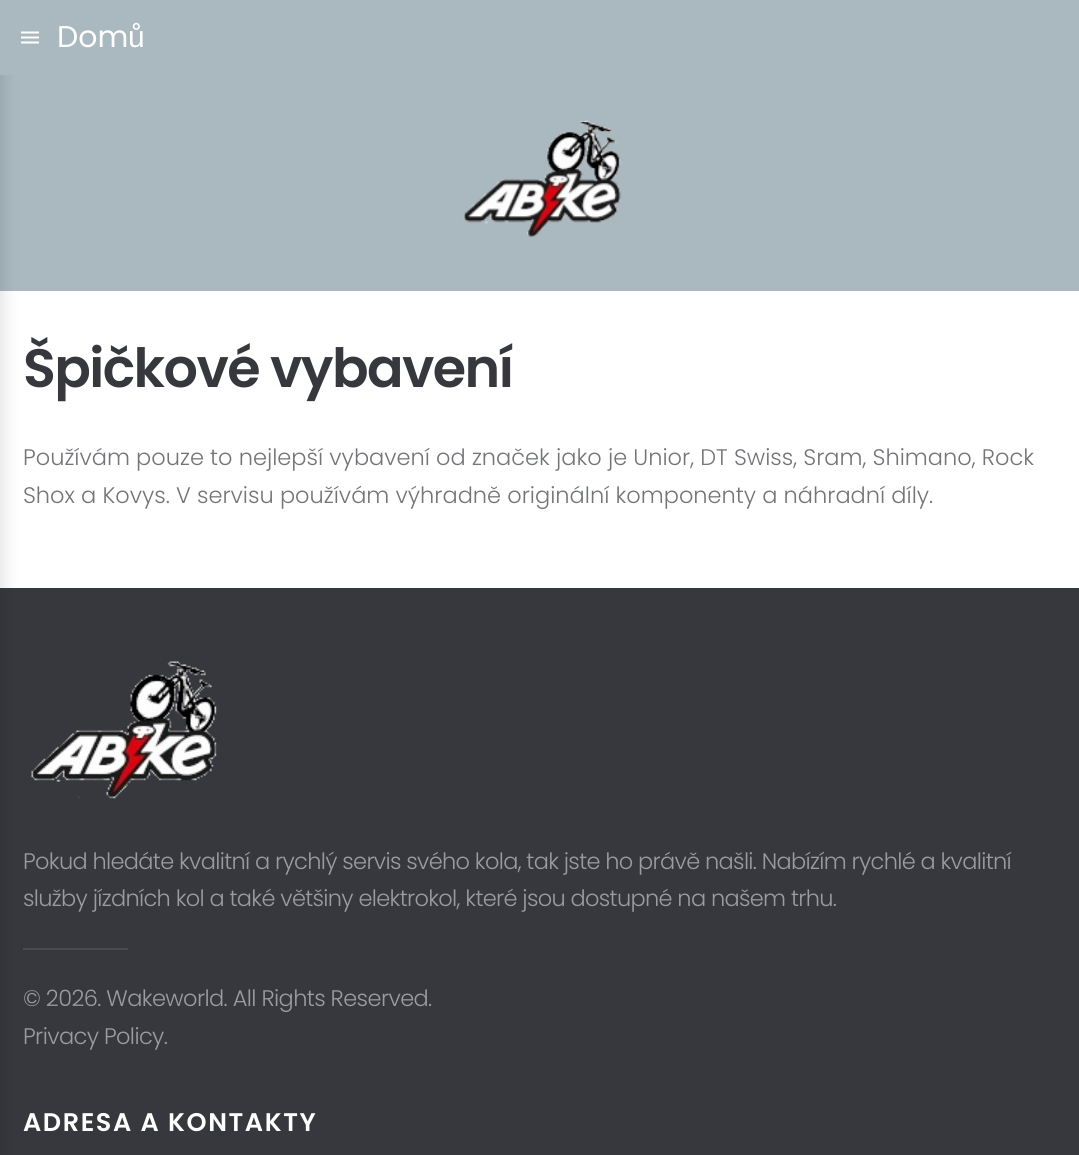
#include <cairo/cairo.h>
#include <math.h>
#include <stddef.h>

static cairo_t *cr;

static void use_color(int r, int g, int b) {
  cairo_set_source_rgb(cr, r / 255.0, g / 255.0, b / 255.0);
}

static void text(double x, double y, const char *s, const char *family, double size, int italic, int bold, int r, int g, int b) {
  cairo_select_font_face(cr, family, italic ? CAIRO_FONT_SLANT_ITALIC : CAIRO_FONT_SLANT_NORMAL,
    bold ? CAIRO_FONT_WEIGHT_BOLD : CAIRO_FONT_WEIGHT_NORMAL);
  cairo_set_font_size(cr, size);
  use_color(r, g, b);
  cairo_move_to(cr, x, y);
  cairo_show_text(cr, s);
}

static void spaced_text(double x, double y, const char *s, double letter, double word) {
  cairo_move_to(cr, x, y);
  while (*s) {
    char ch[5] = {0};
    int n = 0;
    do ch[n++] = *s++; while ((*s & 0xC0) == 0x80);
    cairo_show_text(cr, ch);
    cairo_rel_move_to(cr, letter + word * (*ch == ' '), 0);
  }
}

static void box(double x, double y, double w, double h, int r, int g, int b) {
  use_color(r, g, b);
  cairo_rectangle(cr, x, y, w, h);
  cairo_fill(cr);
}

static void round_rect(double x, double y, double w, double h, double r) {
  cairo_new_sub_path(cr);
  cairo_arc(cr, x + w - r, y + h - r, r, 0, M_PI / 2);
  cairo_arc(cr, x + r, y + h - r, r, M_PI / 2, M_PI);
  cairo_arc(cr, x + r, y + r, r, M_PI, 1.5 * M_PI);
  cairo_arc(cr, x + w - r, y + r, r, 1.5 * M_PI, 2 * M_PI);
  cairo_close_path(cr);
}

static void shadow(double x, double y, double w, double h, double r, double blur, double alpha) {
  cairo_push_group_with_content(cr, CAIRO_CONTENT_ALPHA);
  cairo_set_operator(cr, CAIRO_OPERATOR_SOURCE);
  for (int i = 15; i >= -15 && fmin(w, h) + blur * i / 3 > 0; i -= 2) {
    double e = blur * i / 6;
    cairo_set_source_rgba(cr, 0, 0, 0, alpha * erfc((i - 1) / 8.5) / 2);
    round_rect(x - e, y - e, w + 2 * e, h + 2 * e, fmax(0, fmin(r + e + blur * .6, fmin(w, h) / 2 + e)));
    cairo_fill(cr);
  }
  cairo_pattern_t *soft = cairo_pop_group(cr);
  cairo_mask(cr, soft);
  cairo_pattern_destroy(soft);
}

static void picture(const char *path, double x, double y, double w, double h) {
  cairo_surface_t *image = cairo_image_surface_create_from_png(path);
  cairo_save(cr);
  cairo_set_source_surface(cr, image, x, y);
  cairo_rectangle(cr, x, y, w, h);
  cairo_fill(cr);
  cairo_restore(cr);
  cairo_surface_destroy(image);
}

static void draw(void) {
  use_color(255, 255, 255);
  cairo_paint(cr);
  box(0, 75, 1079, 216, 170, 184, 192);
  box(0, 588, 1079, 567, 55, 56, 62);
  box(23, 948, 105, 2, 75, 76, 81);
  use_color(0, 0, 0);
  shadow(-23, -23, 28, 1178, 0, 7.5, 0.1);
  box(0, 0, 1079, 75, 170, 184, 192);
  picture("img_01.png", 21, 31, 18, 13);
  picture("img_02.png", 463, 120, 159, 117);
  picture("img_03.png", 31, 661, 186, 138);
  text(57, 47, "Dom", "Poppins", 30, 0, 0, 255, 255, 255);
  text(128, 47, "ů", "Liberation Sans", 30, 0, 0, 255, 255, 255);
  cairo_select_font_face(cr, "Poppins SemiBold", CAIRO_FONT_SLANT_NORMAL, CAIRO_FONT_WEIGHT_NORMAL);
  cairo_set_font_size(cr, 54);
  use_color(55, 56, 62);
  spaced_text(23, 387, "Špičkové vybavení", -1.6, 0);
  text(23, 465, "Používám pouze to nejlepší vybavení od značek jako je Unior, DT Swiss, Sram, Shimano, Rock", "Poppins Light", 22.5, 0, 0, 115, 116, 120);
  text(23, 503, "Shox a Kovys. V servisu používám výhradně originální komponenty a náhradní díly.", "Poppins Light", 22.5, 0, 0, 115, 116, 120);
  use_color(155, 156, 159);
  spaced_text(23, 869, "Pokud hledáte kvalitní a rychlý servis svého kola, tak jste ho právě našli. Nabízím rychlé a kvalitní", -0.68, 0);
  spaced_text(23, 906, "služby jízdních kol a také většiny elektrokol, které jsou dostupné na našem trhu.", -0.68, 0);
  spaced_text(23, 1006, "© 2026. Wakeworld. All Rights Reserved.", -0.6, 0);
  spaced_text(23, 1044, "Privacy Policy.", -0.6, 0);
  cairo_select_font_face(cr, "Poppins SemiBold", CAIRO_FONT_SLANT_NORMAL, CAIRO_FONT_WEIGHT_NORMAL);
  cairo_set_font_size(cr, 25.5);
  use_color(255, 255, 255);
  spaced_text(23, 1131, "ADRESA A KONTAKTY", 1.6, 0);
}

int main(void) {
  cairo_surface_t *surface = cairo_image_surface_create(CAIRO_FORMAT_RGB24, 1079, 1155);
  cr = cairo_create(surface);
  cairo_font_options_t *options = cairo_font_options_create();
  cairo_font_options_set_hint_metrics(options, CAIRO_HINT_METRICS_OFF);
  cairo_font_options_set_hint_style(options, CAIRO_HINT_STYLE_NONE);
  cairo_set_font_options(cr, options);
  cairo_set_miter_limit(cr, 4);
  draw();
  cairo_surface_write_to_png(surface, "out.png");
  cairo_font_options_destroy(options);
  cairo_destroy(cr);
  cairo_surface_destroy(surface);
  return 0;
}
